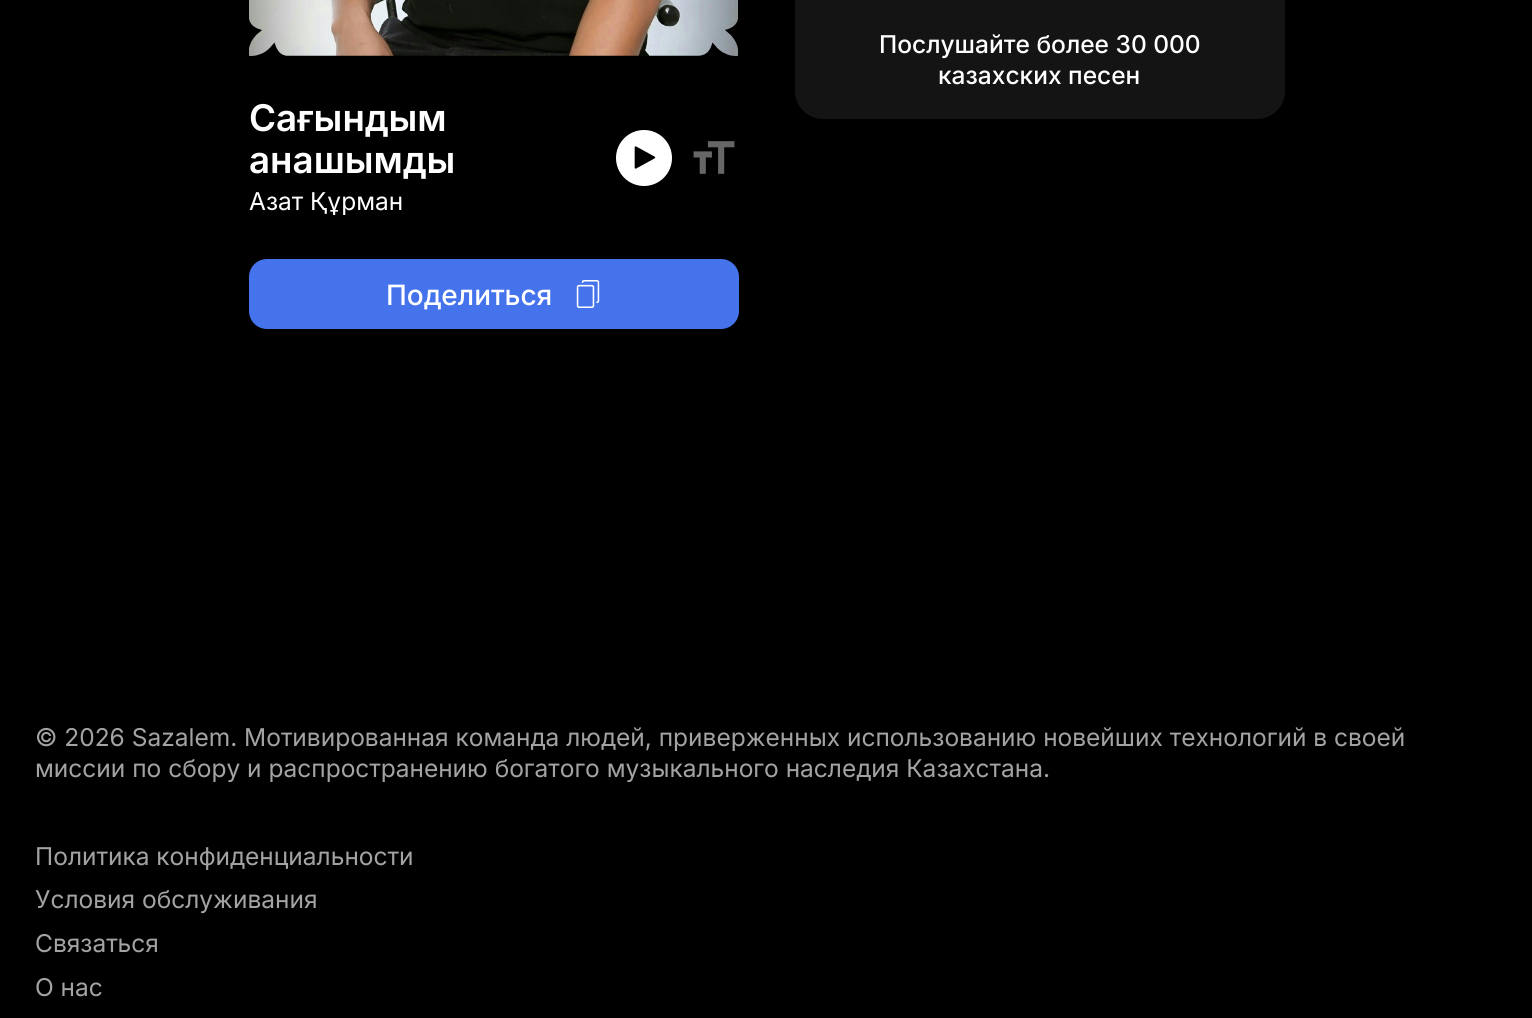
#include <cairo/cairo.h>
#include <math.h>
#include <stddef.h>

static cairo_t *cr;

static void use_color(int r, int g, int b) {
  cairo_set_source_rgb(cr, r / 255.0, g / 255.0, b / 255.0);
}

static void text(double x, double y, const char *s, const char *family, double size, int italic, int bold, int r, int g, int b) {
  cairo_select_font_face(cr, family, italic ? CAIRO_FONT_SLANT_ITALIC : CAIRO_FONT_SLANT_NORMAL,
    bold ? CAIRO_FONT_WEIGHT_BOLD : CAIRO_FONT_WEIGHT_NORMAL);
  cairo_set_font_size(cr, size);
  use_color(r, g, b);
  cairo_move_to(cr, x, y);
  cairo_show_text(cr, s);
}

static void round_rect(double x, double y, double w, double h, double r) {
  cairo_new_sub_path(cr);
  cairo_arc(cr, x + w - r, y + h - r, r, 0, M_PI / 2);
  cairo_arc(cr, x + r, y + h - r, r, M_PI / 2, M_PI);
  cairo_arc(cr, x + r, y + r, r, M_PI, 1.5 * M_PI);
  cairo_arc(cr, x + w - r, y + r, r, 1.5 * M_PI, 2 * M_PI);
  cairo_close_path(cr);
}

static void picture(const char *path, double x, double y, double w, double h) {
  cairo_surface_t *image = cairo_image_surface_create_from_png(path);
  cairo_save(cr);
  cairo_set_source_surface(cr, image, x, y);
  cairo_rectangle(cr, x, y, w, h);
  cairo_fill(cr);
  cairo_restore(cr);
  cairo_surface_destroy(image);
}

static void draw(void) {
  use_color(0, 0, 0);
  cairo_paint(cr);
  use_color(20, 20, 20);
  round_rect(795, -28, 490, 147, 28);
  cairo_fill(cr);
  picture("img_01.png", 249, 0, 490, 56);
  use_color(255, 255, 255);
  cairo_arc(cr, 644, 158, 28, 0, 2 * M_PI);
  cairo_fill(cr);
  picture("img_02.png", 634, 146, 22, 23);
  picture("img_03.png", 693, 141, 42, 33);
  use_color(68, 115, 235);
  round_rect(249, 259, 490, 70, 18);
  cairo_fill(cr);
  picture("img_04.png", 576, 280, 24, 28);
  text(879, 53, "Послушайте более 30 000", "Inter Medium", 24.5, 0, 0, 255, 255, 255);
  text(938, 84, "казахских песен", "Inter Medium", 24.5, 0, 0, 255, 255, 255);
  text(249, 131, "Сағындым", "Inter SemiBold", 36.75, 0, 0, 255, 255, 255);
  text(249, 173, "анашымды", "Inter SemiBold", 36.75, 0, 0, 255, 255, 255);
  text(249, 210, "Азат Құрман", "Inter", 24.5, 0, 0, 255, 255, 255);
  text(386, 305, "Поделиться", "Inter Medium", 28, 0, 0, 255, 255, 255);
  text(35, 746, "© 2026 Sazalem. Мотивированная команда людей, приверженных использованию новейших технологий в своей", "Inter", 24.5, 0, 0, 163, 163, 163);
  text(35, 777, "миссии по сбору и распространению богатого музыкального наследия Казахстана.", "Inter", 24.5, 0, 0, 163, 163, 163);
  text(35, 865, "Политика конфиденциальности", "Inter", 24.5, 0, 0, 163, 163, 163);
  text(35, 908, "Условия обслуживания", "Inter", 24.5, 0, 0, 163, 163, 163);
  text(35, 952, "Связаться", "Inter", 24.5, 0, 0, 163, 163, 163);
  text(35, 996, "О нас", "Inter", 24.5, 0, 0, 163, 163, 163);
}

int main(void) {
  cairo_surface_t *surface = cairo_image_surface_create(CAIRO_FORMAT_RGB24, 1532, 1018);
  cr = cairo_create(surface);
  cairo_font_options_t *options = cairo_font_options_create();
  cairo_font_options_set_hint_metrics(options, CAIRO_HINT_METRICS_OFF);
  cairo_font_options_set_hint_style(options, CAIRO_HINT_STYLE_NONE);
  cairo_set_font_options(cr, options);
  cairo_set_miter_limit(cr, 4);
  draw();
  cairo_surface_write_to_png(surface, "out.png");
  cairo_font_options_destroy(options);
  cairo_destroy(cr);
  cairo_surface_destroy(surface);
  return 0;
}
